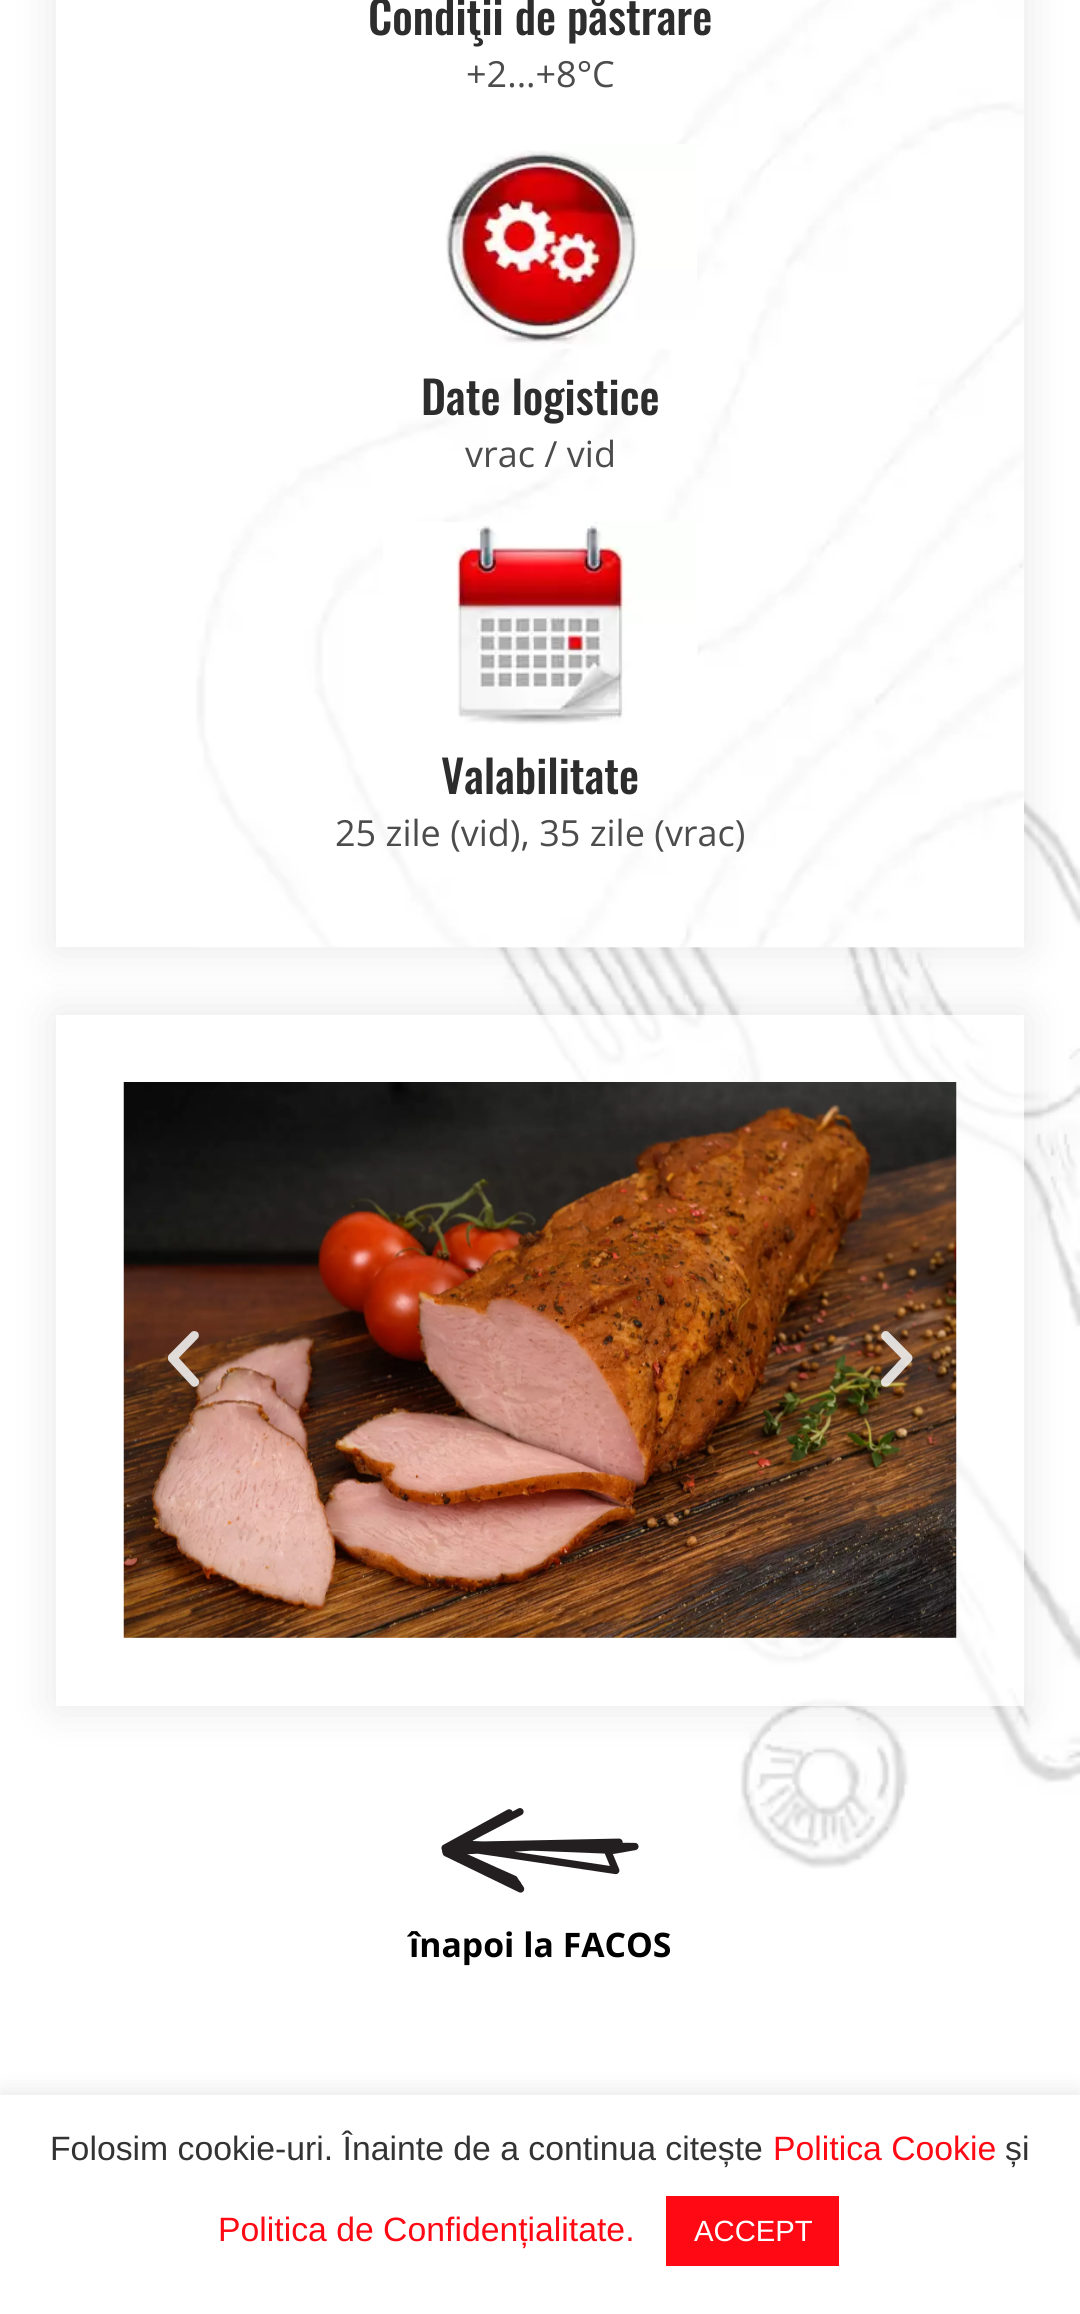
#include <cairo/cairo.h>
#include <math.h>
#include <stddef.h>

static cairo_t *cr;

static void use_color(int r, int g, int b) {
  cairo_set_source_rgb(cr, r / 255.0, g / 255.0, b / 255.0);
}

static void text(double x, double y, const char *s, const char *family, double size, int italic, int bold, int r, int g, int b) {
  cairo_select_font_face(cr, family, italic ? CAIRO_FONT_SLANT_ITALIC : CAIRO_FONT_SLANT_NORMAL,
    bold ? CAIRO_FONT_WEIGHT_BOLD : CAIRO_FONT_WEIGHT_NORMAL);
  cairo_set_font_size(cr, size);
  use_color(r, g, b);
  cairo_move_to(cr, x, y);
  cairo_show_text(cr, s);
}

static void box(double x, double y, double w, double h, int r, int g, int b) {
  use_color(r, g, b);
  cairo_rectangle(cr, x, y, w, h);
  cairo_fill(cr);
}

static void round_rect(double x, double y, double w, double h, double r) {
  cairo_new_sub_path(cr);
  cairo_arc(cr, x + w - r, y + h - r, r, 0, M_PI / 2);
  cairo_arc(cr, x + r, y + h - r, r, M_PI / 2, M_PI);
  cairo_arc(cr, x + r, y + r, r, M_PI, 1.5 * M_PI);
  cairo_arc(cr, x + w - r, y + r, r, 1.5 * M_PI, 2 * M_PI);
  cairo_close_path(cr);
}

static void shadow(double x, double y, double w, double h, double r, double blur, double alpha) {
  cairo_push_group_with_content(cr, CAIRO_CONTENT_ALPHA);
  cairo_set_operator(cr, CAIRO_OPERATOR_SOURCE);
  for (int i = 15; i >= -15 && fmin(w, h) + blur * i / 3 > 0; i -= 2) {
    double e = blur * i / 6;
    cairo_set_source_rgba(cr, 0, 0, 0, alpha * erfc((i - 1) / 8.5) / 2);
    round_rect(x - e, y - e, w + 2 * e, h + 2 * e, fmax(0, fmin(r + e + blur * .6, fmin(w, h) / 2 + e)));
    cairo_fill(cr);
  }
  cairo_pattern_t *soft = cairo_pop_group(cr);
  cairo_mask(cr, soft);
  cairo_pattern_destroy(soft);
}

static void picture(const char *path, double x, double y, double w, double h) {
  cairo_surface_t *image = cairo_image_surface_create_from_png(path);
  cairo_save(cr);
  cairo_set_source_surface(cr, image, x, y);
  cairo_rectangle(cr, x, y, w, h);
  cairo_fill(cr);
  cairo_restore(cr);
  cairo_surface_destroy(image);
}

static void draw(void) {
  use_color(255, 255, 255);
  cairo_paint(cr);
  picture("img_01.png", 387, 769, 693, 1100);
  use_color(0, 0, 0);
  shadow(56, -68, 968, 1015, 0, 22.5, 0.1);
  box(56, 0, 968, 947, 255, 255, 255);
  picture("img_02.png", 196, 0, 828, 948);
  picture("img_03.png", 445, 144, 252, 205);
  picture("img_04.png", 383, 522, 315, 203);
  cairo_save(cr);
  cairo_set_fill_rule(cr, CAIRO_FILL_RULE_EVEN_ODD);
  cairo_new_path(cr);
  cairo_move_to(cr, 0, 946);
  cairo_line_to(cr, 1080, 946);
  cairo_line_to(cr, 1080, 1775);
  cairo_line_to(cr, 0, 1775);
  cairo_close_path(cr);
  cairo_move_to(cr, 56, 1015);
  cairo_line_to(cr, 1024, 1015);
  cairo_line_to(cr, 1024, 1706);
  cairo_line_to(cr, 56, 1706);
  cairo_close_path(cr);
  cairo_clip(cr);
  use_color(0, 0, 0);
  shadow(56, 1015, 968, 691, 0, 22.5, 0.1);
  cairo_restore(cr);
  cairo_set_source_rgba(cr, 1, 1, 1, 0.72);
  cairo_rectangle(cr, 56, 1015, 968, 691);
  cairo_fill(cr);
  picture("img_05.png", 123, 1082, 834, 556);
  picture("img_06.png", 167, 1331, 33, 56);
  picture("img_07.png", 880, 1331, 33, 56);
  picture("img_08.png", 441, 1808, 198, 85);
  use_color(172, 171, 171);
  shadow(0, 2093, 1080, 220, 0, 11, 0.3);
  box(0, 2095, 1080, 219, 255, 255, 255);
  box(666, 2196, 173, 70, 255, 9, 20);
  text(368, 35, "Condiţii de păstrare", "Oswald Medium", 45, 0, 0, 45, 45, 45);
  text(466, 87, "+2...+8°C", "Open Sans", 36, 0, 0, 76, 76, 76);
  text(421, 415, "Date logistice", "Oswald Medium", 45, 0, 0, 45, 45, 45);
  text(465, 467, "vrac / vid", "Open Sans", 36, 0, 0, 76, 76, 76);
  text(441, 794, "Valabilitate", "Oswald Medium", 45, 0, 0, 45, 45, 45);
  text(335, 846, "25 zile (vid), 35 zile (vrac)", "Open Sans", 36, 0, 0, 76, 76, 76);
  text(409, 1957, "înapoi la FACOS", "Open Sans", 33.75, 0, 1, 0, 0, 0);
  text(50, 2160, "Folosim cookie-uri. Înainte de a continua citește", "Liberation Sans", 33.75, 0, 0, 51, 51, 51);
  text(773, 2160, "Politica Cookie", "Liberation Sans", 33.75, 0, 0, 255, 9, 20);
  text(1005, 2160, "și", "Liberation Sans", 33.75, 0, 0, 51, 51, 51);
  text(218, 2241, "Politica de Confidențialitate.", "Liberation Sans", 33.75, 0, 0, 255, 9, 20);
  text(694, 2241, "ACCEPT", "Liberation Sans", 29.25, 0, 0, 255, 255, 255);
}

int main(void) {
  cairo_surface_t *surface = cairo_image_surface_create(CAIRO_FORMAT_RGB24, 1080, 2314);
  cr = cairo_create(surface);
  cairo_font_options_t *options = cairo_font_options_create();
  cairo_font_options_set_hint_metrics(options, CAIRO_HINT_METRICS_OFF);
  cairo_font_options_set_hint_style(options, CAIRO_HINT_STYLE_NONE);
  cairo_set_font_options(cr, options);
  cairo_set_miter_limit(cr, 4);
  draw();
  cairo_surface_write_to_png(surface, "out.png");
  cairo_font_options_destroy(options);
  cairo_destroy(cr);
  cairo_surface_destroy(surface);
  return 0;
}
